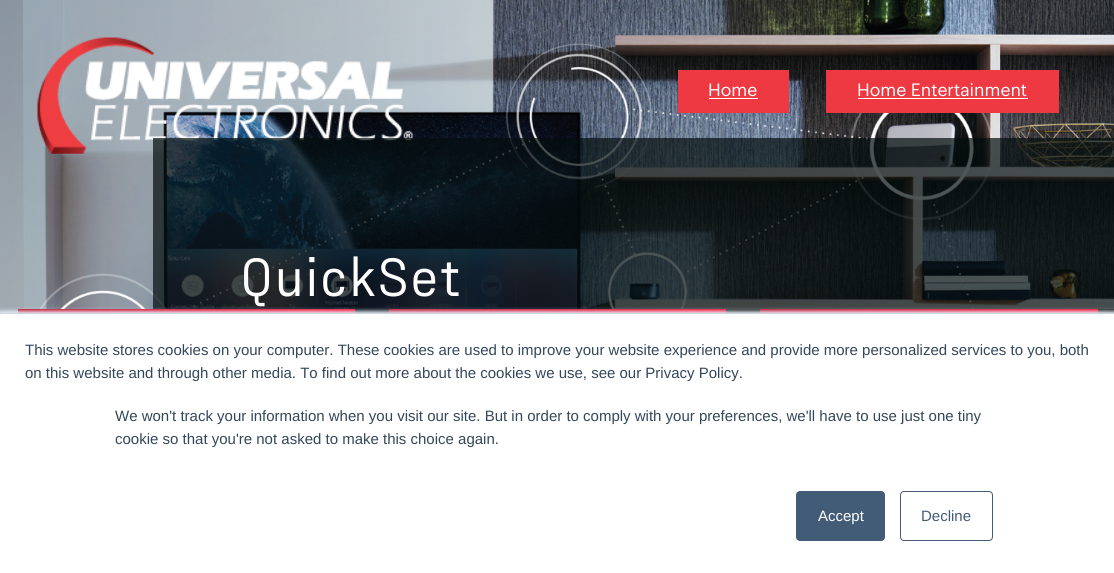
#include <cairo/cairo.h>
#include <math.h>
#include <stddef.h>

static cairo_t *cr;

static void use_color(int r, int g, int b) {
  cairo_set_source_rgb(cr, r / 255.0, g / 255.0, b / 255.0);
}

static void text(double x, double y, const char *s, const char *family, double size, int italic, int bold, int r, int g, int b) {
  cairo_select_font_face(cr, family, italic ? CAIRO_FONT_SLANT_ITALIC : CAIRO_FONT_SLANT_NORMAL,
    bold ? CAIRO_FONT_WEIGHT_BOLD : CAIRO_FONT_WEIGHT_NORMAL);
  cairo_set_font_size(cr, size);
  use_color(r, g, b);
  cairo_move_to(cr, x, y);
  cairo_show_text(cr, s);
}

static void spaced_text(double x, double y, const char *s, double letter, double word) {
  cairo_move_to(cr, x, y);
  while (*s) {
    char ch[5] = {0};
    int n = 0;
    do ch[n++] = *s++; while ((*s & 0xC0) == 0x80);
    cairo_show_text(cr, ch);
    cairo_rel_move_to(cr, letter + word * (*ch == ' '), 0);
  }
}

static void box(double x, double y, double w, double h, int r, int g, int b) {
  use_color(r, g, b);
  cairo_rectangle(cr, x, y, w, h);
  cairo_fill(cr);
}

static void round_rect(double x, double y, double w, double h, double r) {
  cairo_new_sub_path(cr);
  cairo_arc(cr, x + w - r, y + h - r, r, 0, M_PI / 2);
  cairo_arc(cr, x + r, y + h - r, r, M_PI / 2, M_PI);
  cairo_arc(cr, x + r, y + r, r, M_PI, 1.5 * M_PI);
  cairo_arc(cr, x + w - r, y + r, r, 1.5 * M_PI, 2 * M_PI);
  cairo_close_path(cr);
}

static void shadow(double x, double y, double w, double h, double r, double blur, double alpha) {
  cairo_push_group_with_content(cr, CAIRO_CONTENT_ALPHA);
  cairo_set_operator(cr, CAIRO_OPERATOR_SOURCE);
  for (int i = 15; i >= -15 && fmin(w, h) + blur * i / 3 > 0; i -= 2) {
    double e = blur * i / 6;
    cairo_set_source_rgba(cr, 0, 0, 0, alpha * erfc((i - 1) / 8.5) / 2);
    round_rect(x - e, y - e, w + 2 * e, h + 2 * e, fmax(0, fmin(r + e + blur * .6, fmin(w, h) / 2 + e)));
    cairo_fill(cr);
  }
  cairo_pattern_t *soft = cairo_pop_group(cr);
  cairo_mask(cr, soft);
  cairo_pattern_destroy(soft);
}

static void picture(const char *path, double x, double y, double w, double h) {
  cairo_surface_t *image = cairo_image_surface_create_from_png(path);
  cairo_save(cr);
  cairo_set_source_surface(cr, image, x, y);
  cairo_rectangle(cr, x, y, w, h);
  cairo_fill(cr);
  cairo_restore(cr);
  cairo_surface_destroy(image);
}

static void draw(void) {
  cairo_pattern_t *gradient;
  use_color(255, 255, 255);
  cairo_paint(cr);
  picture("img_01.png", 0, 0, 1114, 313);
  picture("img_02.png", 37, 37, 376, 117);
  box(678, 70, 111, 43, 238, 57, 67);
  box(709, 98, 49, 1, 255, 255, 255);
  box(826, 70, 233, 43, 238, 57, 67);
  box(858, 98, 170, 1, 255, 255, 255);
  cairo_set_source_rgba(cr, 0.016, 0.051, 0.051, 0.7);
  cairo_rectangle(cr, 153, 138, 961, 175);
  cairo_fill(cr);
  gradient = cairo_pattern_create_linear(18, 351, 355, 351);
  cairo_pattern_add_color_stop_rgba(gradient, 0, 0.729, 0.02, 0.153, 1);
  cairo_pattern_add_color_stop_rgba(gradient, 1, 0.953, 0, 0.176, 1);
  cairo_set_source(cr, gradient);
  cairo_pattern_destroy(gradient);
  cairo_rectangle(cr, 18, 309, 337, 4);
  cairo_fill(cr);
  gradient = cairo_pattern_create_linear(389, 351, 726, 351);
  cairo_pattern_add_color_stop_rgba(gradient, 0, 0.729, 0.02, 0.153, 1);
  cairo_pattern_add_color_stop_rgba(gradient, 1, 0.953, 0, 0.176, 1);
  cairo_set_source(cr, gradient);
  cairo_pattern_destroy(gradient);
  cairo_rectangle(cr, 389, 309, 337, 4);
  cairo_fill(cr);
  gradient = cairo_pattern_create_linear(760, 351, 1098, 351);
  cairo_pattern_add_color_stop_rgba(gradient, 0, 0.729, 0.02, 0.153, 1);
  cairo_pattern_add_color_stop_rgba(gradient, 1, 0.953, 0, 0.176, 1);
  cairo_set_source(cr, gradient);
  cairo_pattern_destroy(gradient);
  cairo_rectangle(cr, 760, 309, 338, 4);
  cairo_fill(cr);
  use_color(234, 240, 246);
  shadow(0, 311, 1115, 262, 0, 2, 1);
  box(0, 314, 1114, 259, 255, 255, 255);
  box(0, 313, 1114, 1, 203, 214, 226);
  use_color(66, 91, 118);
  round_rect(796.5, 491.5, 88, 49, 3.5);
  cairo_fill_preserve(cr);
  cairo_set_line_width(cr, 1);
  cairo_stroke(cr);
  round_rect(900.5, 491.5, 92, 49, 3.5);
  cairo_stroke(cr);
  text(708, 96, "Home", "Graphik", 17.5, 0, 0, 255, 255, 255);
  text(857, 96, "Home Entertainment", "Graphik", 17.5, 0, 0, 255, 255, 255);
  cairo_select_font_face(cr, "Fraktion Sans", CAIRO_FONT_SLANT_NORMAL, CAIRO_FONT_WEIGHT_NORMAL);
  cairo_set_font_size(cr, 55);
  spaced_text(240, 296, "QuickSet", 1.25, 0);
  text(25, 355, "This website stores cookies on your computer. These cookies are used to improve your website experience and provide more personalized services to you, both", "Liberation Sans", 15, 0, 0, 51, 71, 91);
  text(25, 378, "on this website and through other media. To find out more about the cookies we use, see our Privacy Policy.", "Liberation Sans", 15, 0, 0, 51, 71, 91);
  text(115, 421, "We won't track your information when you visit our site. But in order to comply with your preferences, we'll have to use just one tiny", "Liberation Sans", 15, 0, 0, 51, 71, 91);
  text(115, 444, "cookie so that you're not asked to make this choice again.", "Liberation Sans", 15, 0, 0, 51, 71, 91);
  text(818, 521, "Accept", "Liberation Sans", 15, 0, 0, 255, 255, 255);
  text(921, 521, "Decline", "Liberation Sans", 15, 0, 0, 66, 91, 118);
}

int main(void) {
  cairo_surface_t *surface = cairo_image_surface_create(CAIRO_FORMAT_RGB24, 1114, 573);
  cr = cairo_create(surface);
  cairo_font_options_t *options = cairo_font_options_create();
  cairo_font_options_set_hint_metrics(options, CAIRO_HINT_METRICS_OFF);
  cairo_font_options_set_hint_style(options, CAIRO_HINT_STYLE_NONE);
  cairo_set_font_options(cr, options);
  cairo_set_miter_limit(cr, 4);
  draw();
  cairo_surface_write_to_png(surface, "out.png");
  cairo_font_options_destroy(options);
  cairo_destroy(cr);
  cairo_surface_destroy(surface);
  return 0;
}
